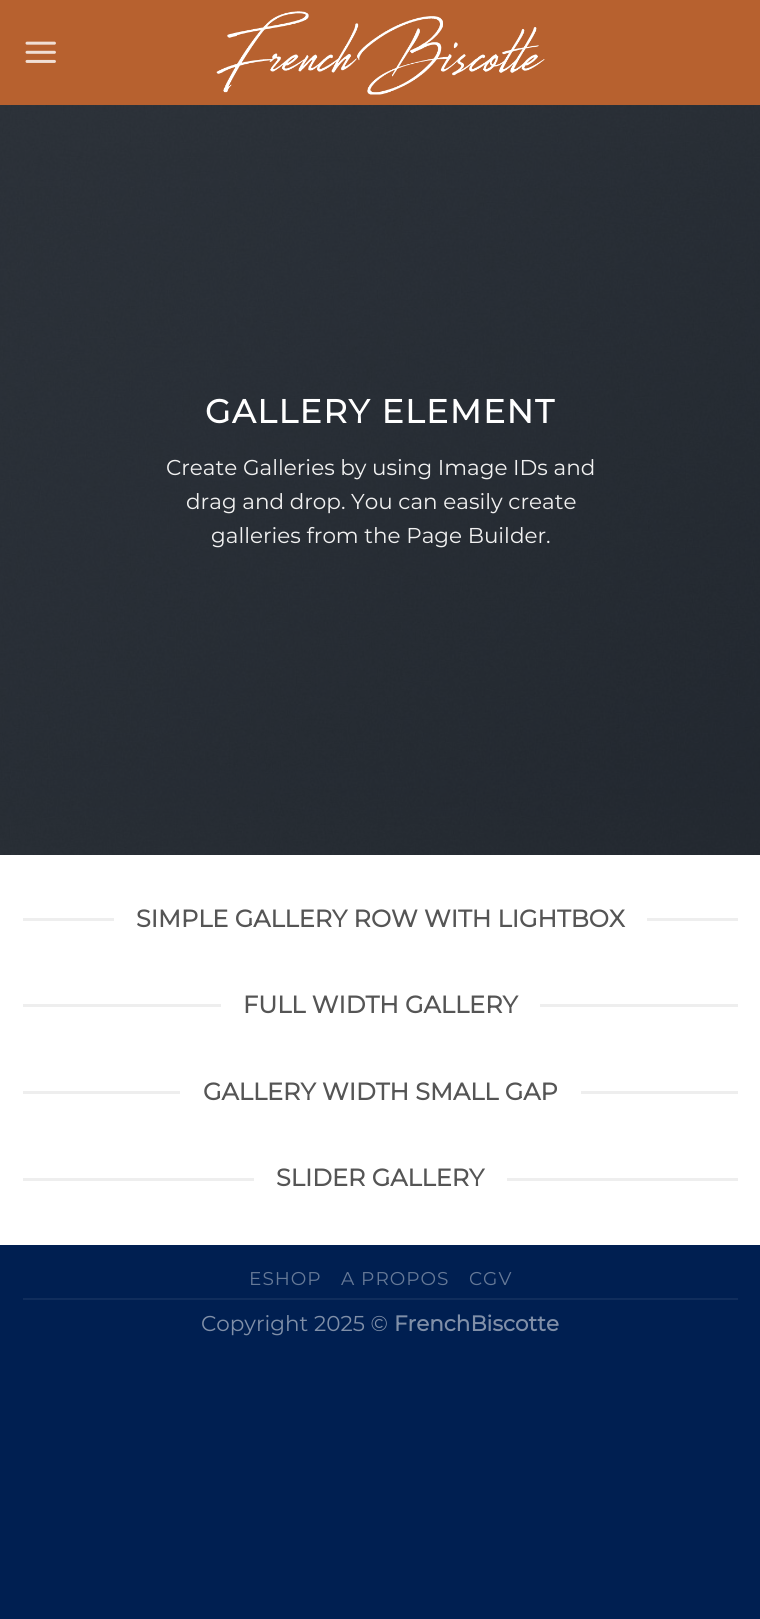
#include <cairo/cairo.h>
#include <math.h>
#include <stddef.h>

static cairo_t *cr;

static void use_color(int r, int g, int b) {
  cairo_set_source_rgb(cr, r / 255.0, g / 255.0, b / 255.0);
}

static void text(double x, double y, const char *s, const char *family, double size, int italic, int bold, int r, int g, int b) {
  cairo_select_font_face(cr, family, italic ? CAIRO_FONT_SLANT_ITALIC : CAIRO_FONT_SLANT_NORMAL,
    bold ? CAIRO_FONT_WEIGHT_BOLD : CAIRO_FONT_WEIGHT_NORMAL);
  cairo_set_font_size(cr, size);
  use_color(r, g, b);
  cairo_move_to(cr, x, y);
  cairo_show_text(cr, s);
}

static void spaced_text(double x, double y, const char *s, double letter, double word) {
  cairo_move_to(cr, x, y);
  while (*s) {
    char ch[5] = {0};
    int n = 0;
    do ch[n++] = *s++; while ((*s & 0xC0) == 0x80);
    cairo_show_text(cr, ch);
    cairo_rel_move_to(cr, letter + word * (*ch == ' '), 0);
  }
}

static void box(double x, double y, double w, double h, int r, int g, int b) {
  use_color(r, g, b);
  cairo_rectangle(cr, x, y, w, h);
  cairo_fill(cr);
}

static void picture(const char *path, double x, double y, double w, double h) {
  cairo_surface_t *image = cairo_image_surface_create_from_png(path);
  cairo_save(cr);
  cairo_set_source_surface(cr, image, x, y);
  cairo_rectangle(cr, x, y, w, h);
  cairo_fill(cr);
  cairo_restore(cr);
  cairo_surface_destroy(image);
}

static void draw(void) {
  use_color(0, 31, 81);
  cairo_paint(cr);
  box(0, 855, 760, 390, 255, 255, 255);
  box(0, 0, 760, 105, 183, 97, 47);
  picture("img_01.png", 25, 41, 31, 22);
  picture("img_02.png", 216, 11, 329, 84);
  picture("img_03.png", 0, 105, 760, 750);
  box(23, 918, 91, 3, 238, 238, 238);
  box(647, 918, 91, 3, 238, 238, 238);
  box(23, 1004, 198, 3, 238, 238, 238);
  box(540, 1004, 198, 3, 238, 238, 238);
  box(23, 1091, 157, 3, 238, 238, 238);
  box(581, 1091, 157, 3, 238, 238, 238);
  box(23, 1178, 231, 3, 238, 238, 238);
  box(507, 1178, 231, 3, 238, 238, 238);
  box(23, 1298, 715, 2, 16, 45, 92);
  cairo_select_font_face(cr, "Montserrat", CAIRO_FONT_SLANT_NORMAL, CAIRO_FONT_WEIGHT_BOLD);
  cairo_set_font_size(cr, 33);
  use_color(255, 255, 255);
  spaced_text(205, 423, "GALLERY ELEMENT", 1.6, 0);
  text(166, 475, "Create Galleries by using Image IDs and", "Montserrat Thin", 21.5, 0, 0, 241, 241, 241);
  text(186, 509, "drag and drop. You can easily create", "Montserrat Thin", 21.5, 0, 0, 241, 241, 241);
  text(211, 543, "galleries from the Page Builder.", "Montserrat Thin", 21.5, 0, 0, 241, 241, 241);
  text(136, 927, "SIMPLE GALLERY ROW WITH LIGHTBOX", "Montserrat", 24, 0, 1, 85, 85, 85);
  text(243, 1013, "FULL WIDTH GALLERY", "Montserrat", 24, 0, 1, 85, 85, 85);
  text(203, 1100, "GALLERY WIDTH SMALL GAP", "Montserrat", 24, 0, 1, 85, 85, 85);
  text(276, 1186, "SLIDER GALLERY", "Montserrat", 24, 0, 1, 85, 85, 85);
  cairo_select_font_face(cr, "Montserrat Thin", CAIRO_FONT_SLANT_NORMAL, CAIRO_FONT_WEIGHT_NORMAL);
  cairo_set_font_size(cr, 18.5);
  use_color(102, 121, 151);
  spaced_text(249, 1285, "ESHOP", 1, 0);
  spaced_text(341, 1285, "A PROPOS", 1, 0);
  spaced_text(469, 1285, "CGV", 1, 0);
  text(201, 1331, "Copyright 2025 ©", "Montserrat Thin", 21.5, 0, 0, 128, 143, 168);
  text(394, 1331, "FrenchBiscotte", "Montserrat", 21.5, 0, 1, 128, 143, 168);
}

int main(void) {
  cairo_surface_t *surface = cairo_image_surface_create(CAIRO_FORMAT_RGB24, 760, 1619);
  cr = cairo_create(surface);
  cairo_font_options_t *options = cairo_font_options_create();
  cairo_font_options_set_hint_metrics(options, CAIRO_HINT_METRICS_OFF);
  cairo_font_options_set_hint_style(options, CAIRO_HINT_STYLE_NONE);
  cairo_set_font_options(cr, options);
  cairo_set_miter_limit(cr, 4);
  draw();
  cairo_surface_write_to_png(surface, "out.png");
  cairo_font_options_destroy(options);
  cairo_destroy(cr);
  cairo_surface_destroy(surface);
  return 0;
}
